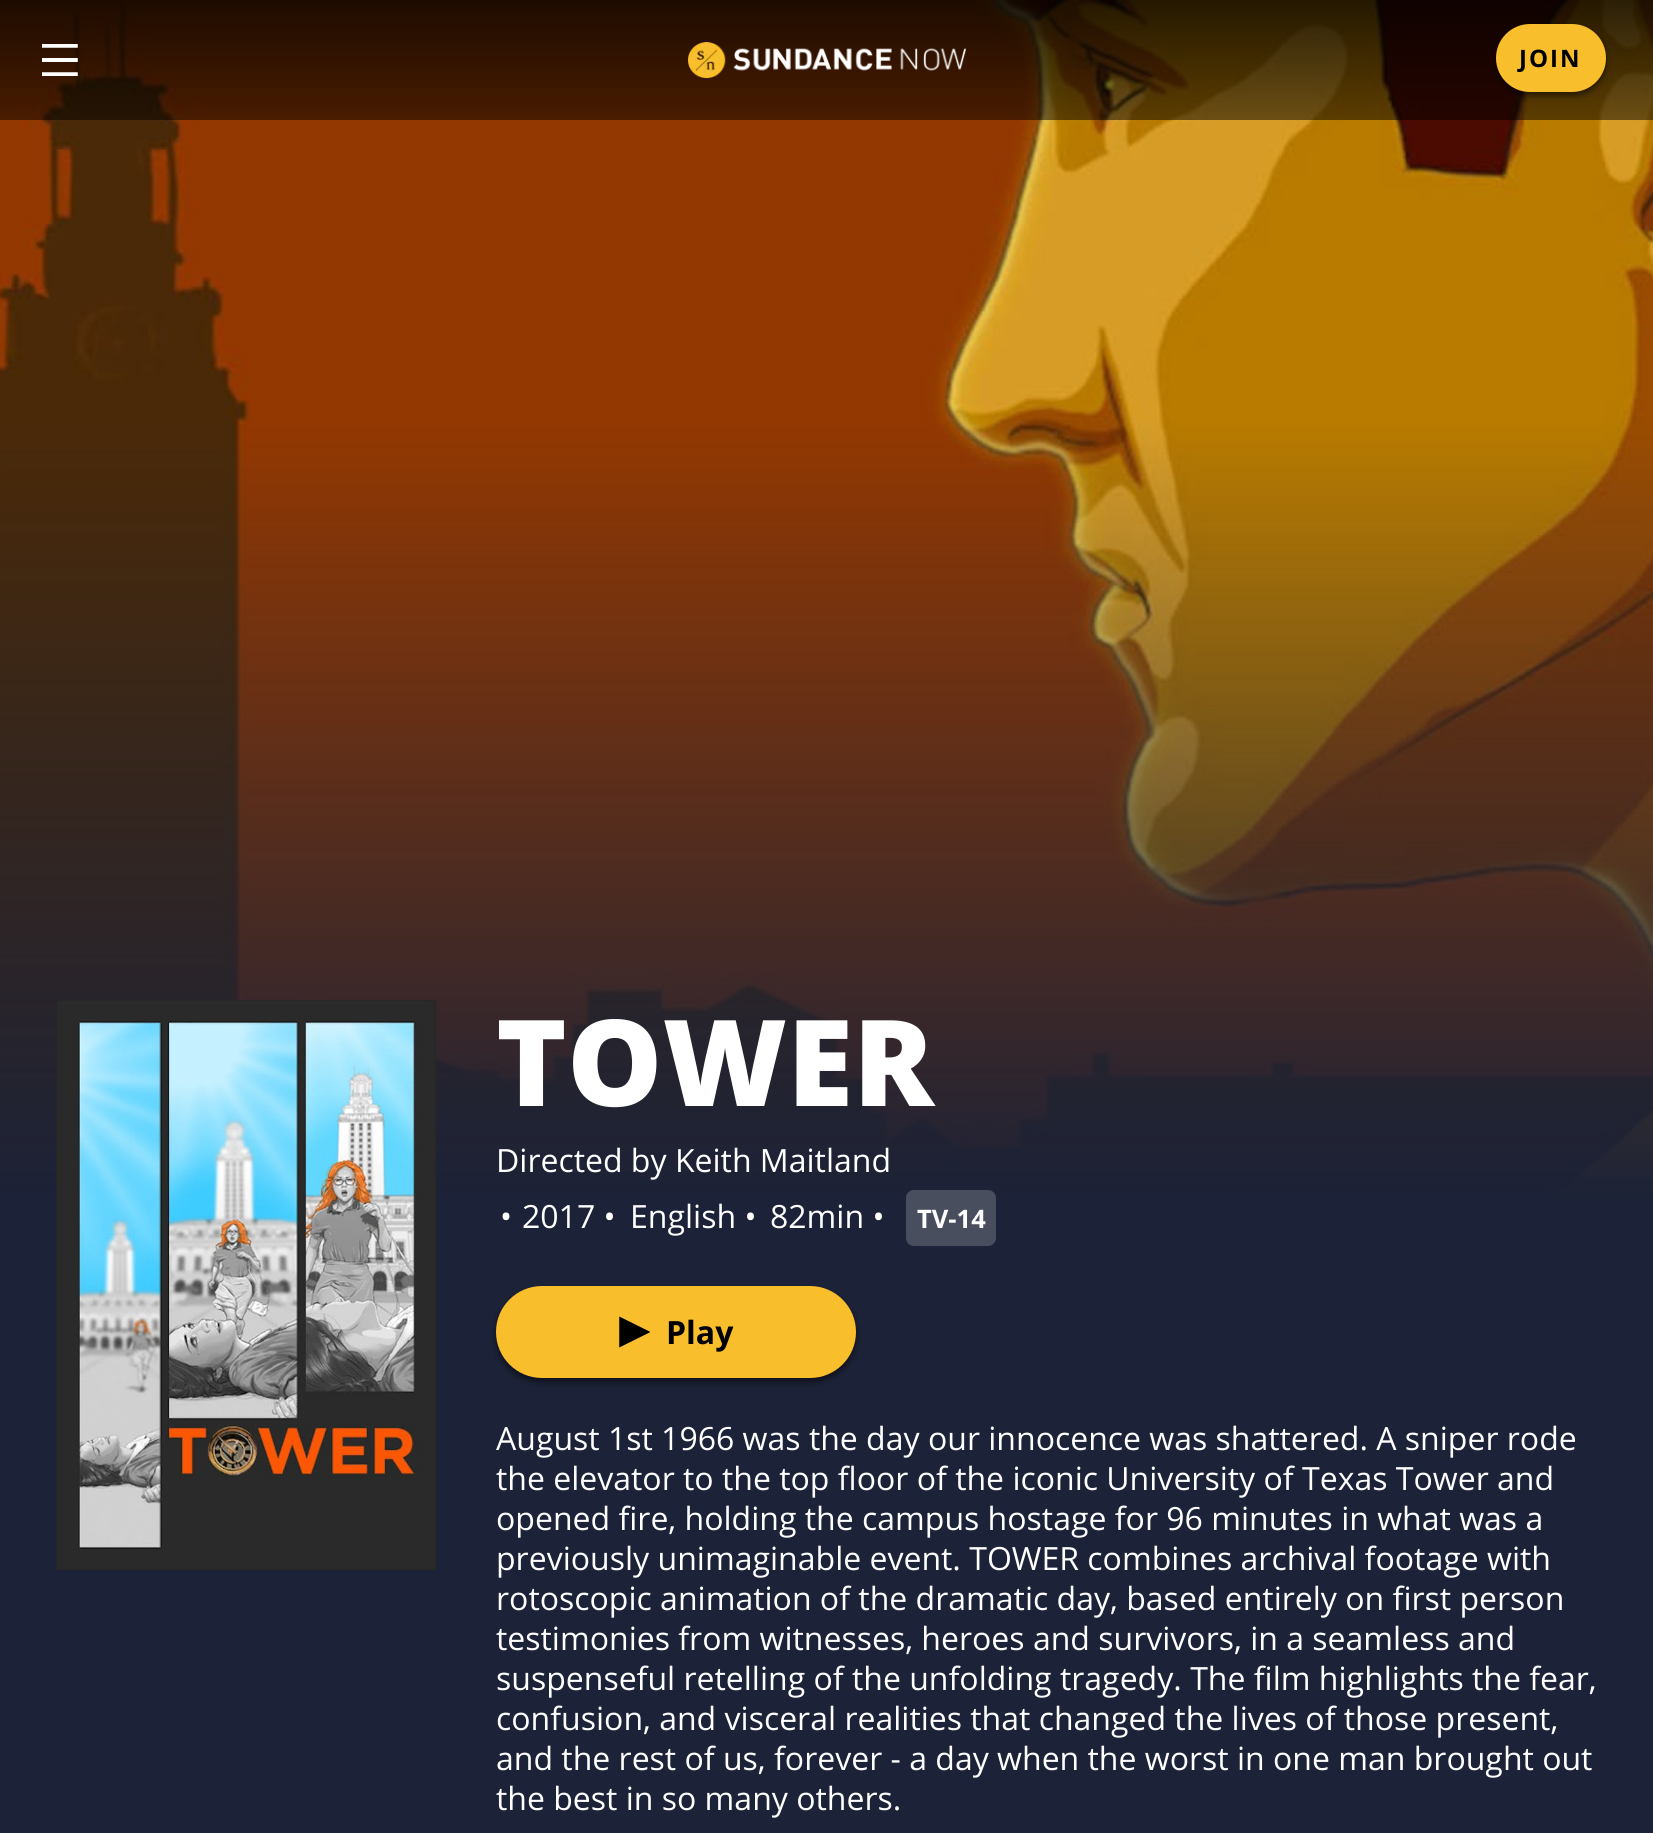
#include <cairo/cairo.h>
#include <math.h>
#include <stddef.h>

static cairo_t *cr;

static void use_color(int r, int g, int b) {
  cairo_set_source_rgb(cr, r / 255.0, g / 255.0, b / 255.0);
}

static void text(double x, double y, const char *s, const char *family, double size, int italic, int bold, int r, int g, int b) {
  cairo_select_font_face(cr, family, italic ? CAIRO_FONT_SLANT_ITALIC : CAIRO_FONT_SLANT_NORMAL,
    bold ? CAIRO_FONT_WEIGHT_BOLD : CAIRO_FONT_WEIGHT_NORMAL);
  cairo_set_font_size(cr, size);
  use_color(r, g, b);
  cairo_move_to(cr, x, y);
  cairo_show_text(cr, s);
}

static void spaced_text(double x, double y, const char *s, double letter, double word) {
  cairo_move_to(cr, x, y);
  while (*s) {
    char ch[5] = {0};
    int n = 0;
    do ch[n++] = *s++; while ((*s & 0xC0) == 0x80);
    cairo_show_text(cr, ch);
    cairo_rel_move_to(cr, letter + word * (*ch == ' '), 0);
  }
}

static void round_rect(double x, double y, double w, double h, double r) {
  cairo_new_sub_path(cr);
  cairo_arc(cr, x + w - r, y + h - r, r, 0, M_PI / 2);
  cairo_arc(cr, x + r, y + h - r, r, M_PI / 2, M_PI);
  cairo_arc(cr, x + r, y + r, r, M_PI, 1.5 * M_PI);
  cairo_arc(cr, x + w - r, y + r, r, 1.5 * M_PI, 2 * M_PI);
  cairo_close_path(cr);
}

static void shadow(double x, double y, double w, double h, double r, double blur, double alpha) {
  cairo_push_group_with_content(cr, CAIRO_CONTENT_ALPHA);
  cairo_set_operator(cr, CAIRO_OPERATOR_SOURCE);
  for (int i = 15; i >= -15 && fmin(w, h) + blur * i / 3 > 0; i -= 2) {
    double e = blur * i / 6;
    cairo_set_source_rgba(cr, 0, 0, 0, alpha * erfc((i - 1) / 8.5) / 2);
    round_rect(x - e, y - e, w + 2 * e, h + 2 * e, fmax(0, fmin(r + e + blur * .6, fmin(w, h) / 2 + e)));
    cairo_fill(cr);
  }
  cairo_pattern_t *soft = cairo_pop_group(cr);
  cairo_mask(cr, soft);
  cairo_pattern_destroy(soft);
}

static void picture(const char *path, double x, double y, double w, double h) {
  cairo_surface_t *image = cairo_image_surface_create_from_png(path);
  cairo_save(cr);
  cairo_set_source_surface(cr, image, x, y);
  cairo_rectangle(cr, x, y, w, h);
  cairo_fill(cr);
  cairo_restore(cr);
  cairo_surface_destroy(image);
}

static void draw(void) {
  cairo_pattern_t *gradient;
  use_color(28, 34, 55);
  cairo_paint(cr);
  picture("img_03.png", 0, 0, 1653, 1200);
  cairo_set_source_rgba(cr, 0, 0, 0, 0.5);
  cairo_rectangle(cr, 0, 0, 1653, 120);
  cairo_fill(cr);
  gradient = cairo_pattern_create_linear(827, 0, 827, 120);
  cairo_pattern_add_color_stop_rgba(gradient, 0, 0, 0, 0, 0.6);
  cairo_pattern_add_color_stop_rgba(gradient, 1, 0, 0, 0, 0);
  cairo_set_source(cr, gradient);
  cairo_pattern_destroy(gradient);
  cairo_rectangle(cr, 0, 0, 1653, 116);
  cairo_fill(cr);
  picture("img_01.png", 688, 42, 278, 36);
  picture("img_02.png", 42, 44, 36, 32);
  use_color(0, 0, 0);
  shadow(1496, 28, 110, 68, 34, 3, 0.5);
  use_color(249, 190, 43);
  round_rect(1496, 24, 110, 68, 34);
  cairo_fill(cr);
  picture("img_04.png", 56, 1000, 380, 570);
  use_color(73, 78, 95);
  round_rect(906, 1190, 90, 56, 8);
  cairo_fill(cr);
  use_color(0, 0, 0);
  shadow(496, 1290, 360, 92, 46, 3, 0.5);
  use_color(249, 190, 43);
  round_rect(496, 1286, 360, 92, 46);
  cairo_fill(cr);
  picture("img_05.png", 619, 1316, 31, 32);
  cairo_select_font_face(cr, "Open Sans", CAIRO_FONT_SLANT_NORMAL, CAIRO_FONT_WEIGHT_BOLD);
  cairo_set_font_size(cr, 24);
  use_color(0, 0, 0);
  spaced_text(1519, 67, "JOIN", 2, 0);
  text(496, 1106, "TOWER", "Open Sans ExtraBold", 120, 0, 0, 255, 255, 255);
  text(496, 1172, "Directed by Keith Maitland", "Open Sans", 32, 0, 0, 255, 255, 255);
  text(500, 1228, "•", "Open Sans", 32, 0, 0, 255, 255, 255);
  text(522, 1228, "2017 •", "Open Sans", 32, 0, 0, 255, 255, 255);
  text(630, 1228, "English •", "Open Sans", 32, 0, 0, 255, 255, 255);
  text(770, 1228, "82min •", "Open Sans", 32, 0, 0, 255, 255, 255);
  text(917, 1228, "TV-14", "Open Sans", 25.5, 0, 1, 255, 255, 255);
  text(666, 1344, "Play", "Open Sans", 32, 0, 1, 0, 0, 0);
  text(496, 1450, "August 1st 1966 was the day our innocence was shattered. A sniper rode", "Open Sans", 32, 0, 0, 255, 255, 255);
  text(496, 1490, "the elevator to the top floor of the iconic University of Texas Tower and", "Open Sans", 32, 0, 0, 255, 255, 255);
  text(496, 1530, "opened fire, holding the campus hostage for 96 minutes in what was a", "Open Sans", 32, 0, 0, 255, 255, 255);
  text(496, 1570, "previously unimaginable event. TOWER combines archival footage with", "Open Sans", 32, 0, 0, 255, 255, 255);
  text(496, 1610, "rotoscopic animation of the dramatic day, based entirely on first person", "Open Sans", 32, 0, 0, 255, 255, 255);
  text(496, 1650, "testimonies from witnesses, heroes and survivors, in a seamless and", "Open Sans", 32, 0, 0, 255, 255, 255);
  text(496, 1690, "suspenseful retelling of the unfolding tragedy. The film highlights the fear,", "Open Sans", 32, 0, 0, 255, 255, 255);
  text(496, 1730, "confusion, and visceral realities that changed the lives of those present,", "Open Sans", 32, 0, 0, 255, 255, 255);
  text(496, 1770, "and the rest of us, forever - a day when the worst in one man brought out", "Open Sans", 32, 0, 0, 255, 255, 255);
  text(496, 1810, "the best in so many others.", "Open Sans", 32, 0, 0, 255, 255, 255);
}

int main(void) {
  cairo_surface_t *surface = cairo_image_surface_create(CAIRO_FORMAT_RGB24, 1653, 1833);
  cr = cairo_create(surface);
  cairo_font_options_t *options = cairo_font_options_create();
  cairo_font_options_set_hint_metrics(options, CAIRO_HINT_METRICS_OFF);
  cairo_font_options_set_hint_style(options, CAIRO_HINT_STYLE_NONE);
  cairo_set_font_options(cr, options);
  cairo_set_miter_limit(cr, 4);
  draw();
  cairo_surface_write_to_png(surface, "out.png");
  cairo_font_options_destroy(options);
  cairo_destroy(cr);
  cairo_surface_destroy(surface);
  return 0;
}
